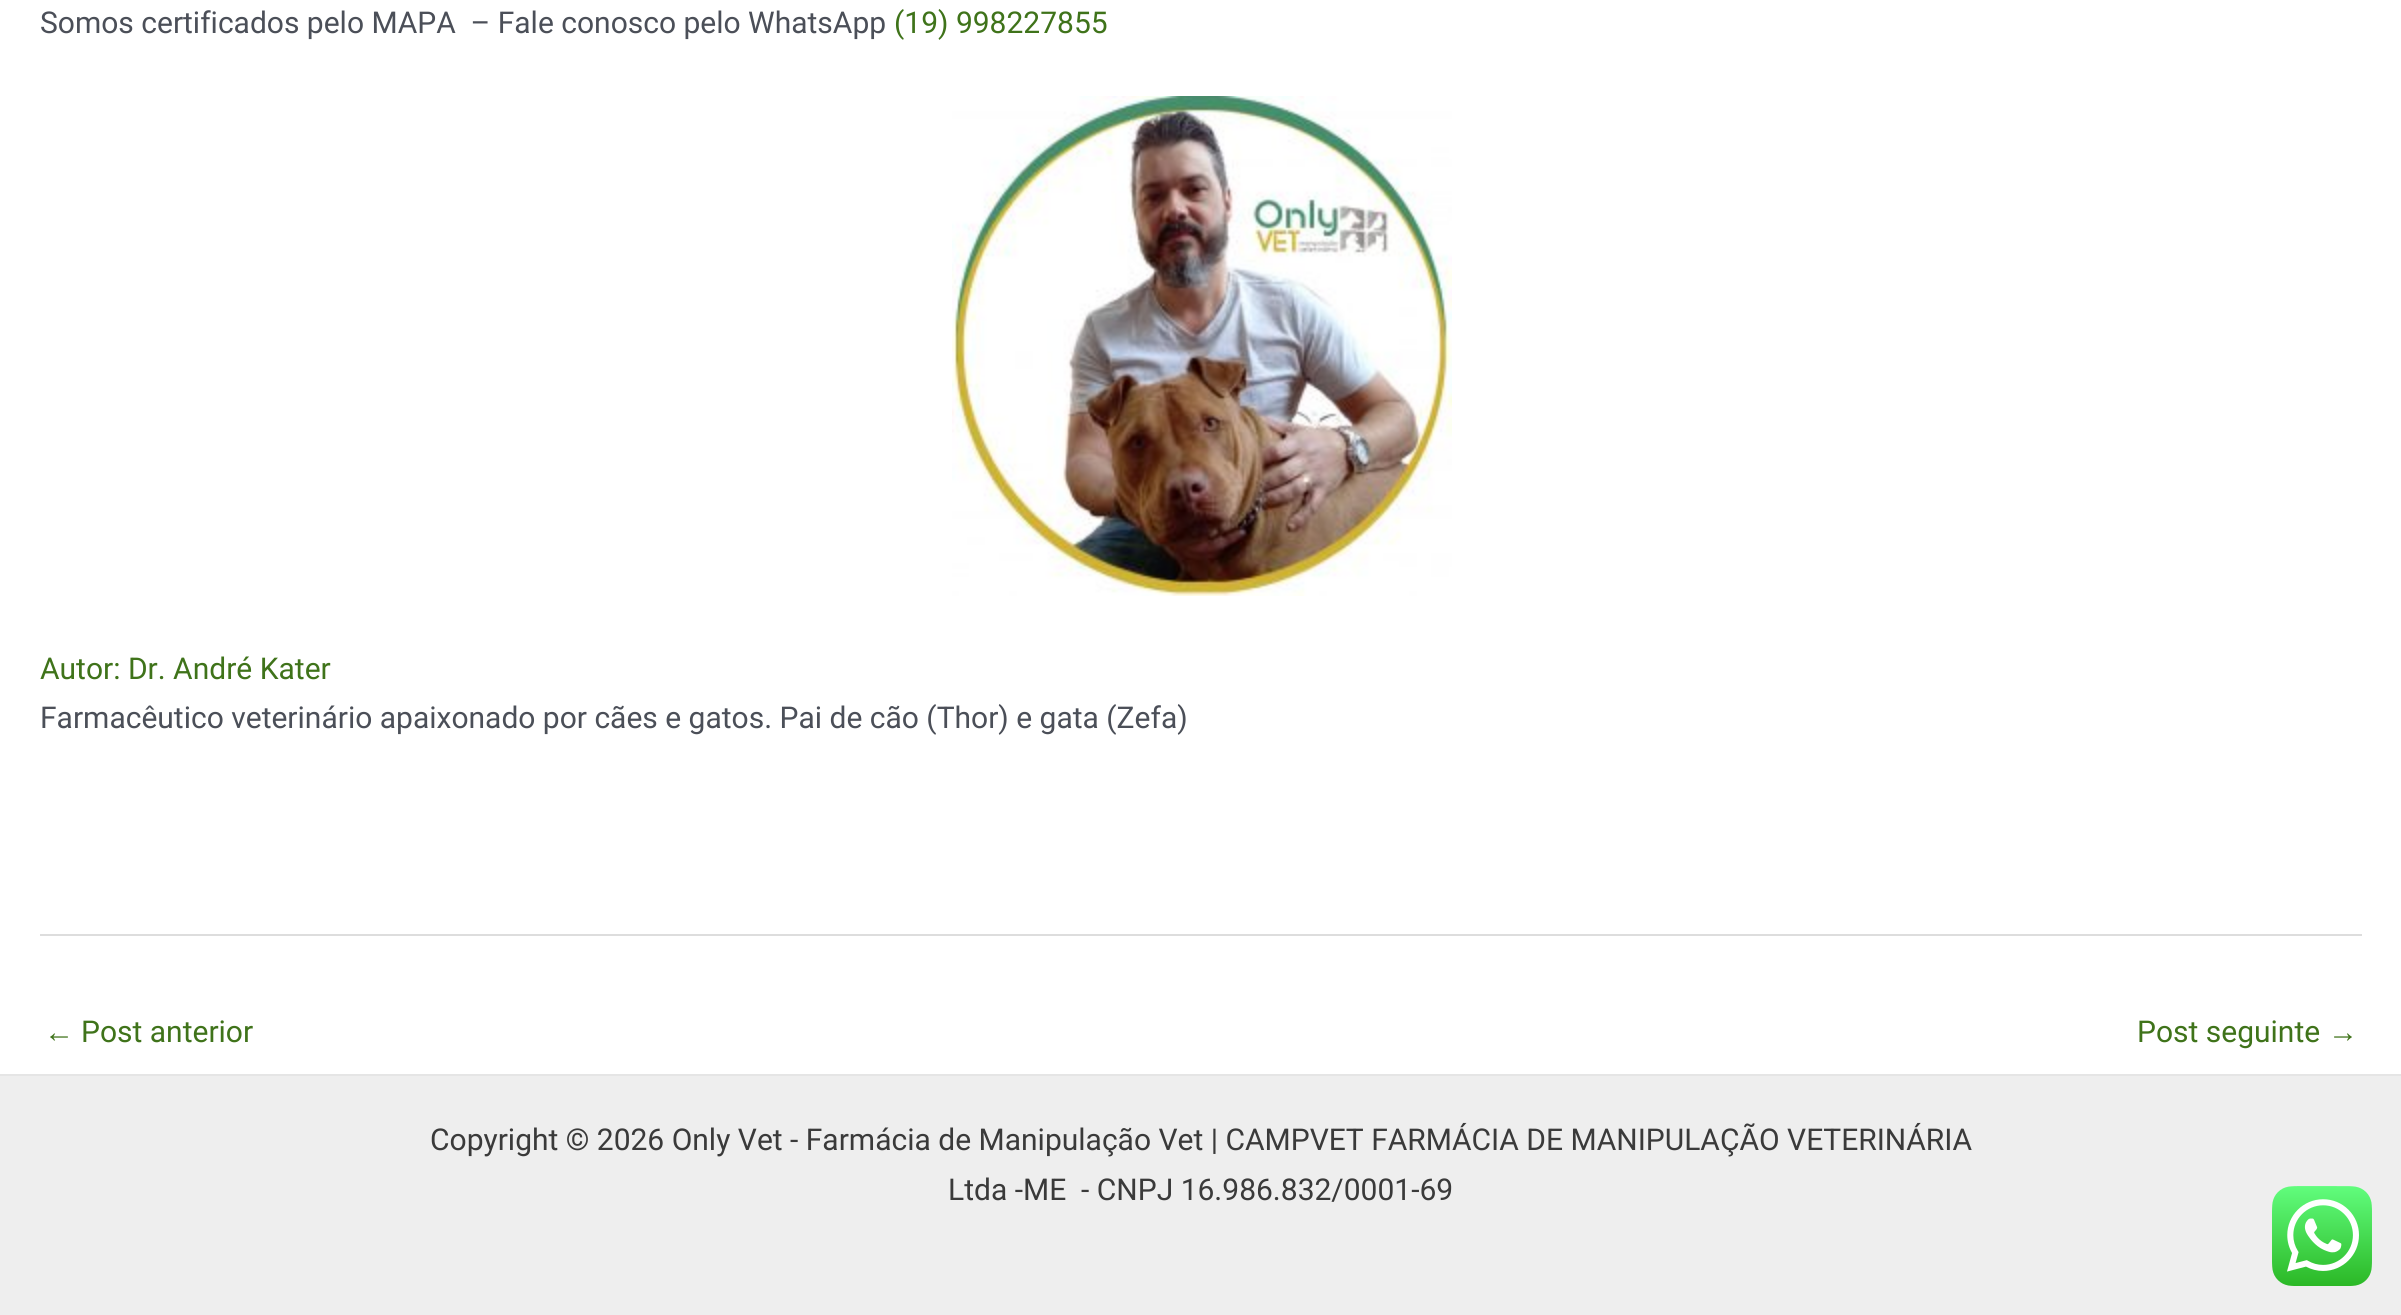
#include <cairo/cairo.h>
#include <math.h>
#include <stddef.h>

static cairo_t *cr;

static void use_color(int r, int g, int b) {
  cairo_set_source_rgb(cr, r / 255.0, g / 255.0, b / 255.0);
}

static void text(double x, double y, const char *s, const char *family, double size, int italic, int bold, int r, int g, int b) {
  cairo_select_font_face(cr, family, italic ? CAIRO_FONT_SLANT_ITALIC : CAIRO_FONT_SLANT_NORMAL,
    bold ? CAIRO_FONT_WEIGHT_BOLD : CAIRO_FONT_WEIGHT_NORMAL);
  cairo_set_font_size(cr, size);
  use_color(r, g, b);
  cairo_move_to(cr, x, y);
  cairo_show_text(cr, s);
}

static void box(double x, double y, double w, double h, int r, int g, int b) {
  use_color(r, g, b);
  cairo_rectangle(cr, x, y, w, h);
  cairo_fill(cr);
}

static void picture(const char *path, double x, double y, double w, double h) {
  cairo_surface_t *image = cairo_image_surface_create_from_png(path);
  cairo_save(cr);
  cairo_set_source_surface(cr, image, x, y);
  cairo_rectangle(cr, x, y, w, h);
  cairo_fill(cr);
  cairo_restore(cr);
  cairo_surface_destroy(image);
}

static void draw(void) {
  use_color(255, 255, 255);
  cairo_paint(cr);
  picture("img_01.png", 952, 96, 500, 500);
  box(40, 934, 2322, 2, 221, 221, 221);
  box(0, 1076, 2401, 239, 238, 238, 238);
  box(0, 1074, 2401, 2, 229, 229, 229);
  picture("img_02.png", 2272, 1186, 100, 100);
  text(40, 33, "Somos certificados pelo MAPA  – Fale conosco pelo WhatsApp", "Roboto", 30, 0, 0, 75, 79, 88);
  text(894, 33, "(19) 998227855", "Roboto", 30, 0, 0, 63, 115, 26);
  text(40, 679, "Autor: Dr. André Kater", "Roboto", 30, 0, 0, 63, 115, 26);
  text(40, 728, "Farmacêutico veterinário apaixonado por cães e gatos. Pai de cão (Thor) e gata (Zefa)", "Roboto", 30, 0, 0, 75, 79, 88);
  text(44, 1042, "←", "Liberation Sans", 30, 0, 0, 63, 115, 26);
  text(81, 1042, "Post anterior", "Roboto", 30, 0, 0, 63, 115, 26);
  text(2137, 1042, "Post seguinte", "Roboto", 30, 0, 0, 63, 115, 26);
  text(2328, 1042, "→", "Liberation Sans", 30, 0, 0, 63, 115, 26);
  text(430, 1150, "Copyright © 2026 Only Vet - Farmácia de Manipulação Vet | CAMPVET FARMÁCIA DE MANIPULAÇÃO VETERINÁRIA", "Roboto", 30, 0, 0, 58, 58, 58);
  text(948, 1200, "Ltda -ME  - CNPJ 16.986.832/0001-69", "Roboto", 30, 0, 0, 58, 58, 58);
}

int main(void) {
  cairo_surface_t *surface = cairo_image_surface_create(CAIRO_FORMAT_RGB24, 2401, 1315);
  cr = cairo_create(surface);
  cairo_font_options_t *options = cairo_font_options_create();
  cairo_font_options_set_hint_metrics(options, CAIRO_HINT_METRICS_OFF);
  cairo_font_options_set_hint_style(options, CAIRO_HINT_STYLE_NONE);
  cairo_set_font_options(cr, options);
  cairo_set_miter_limit(cr, 4);
  draw();
  cairo_surface_write_to_png(surface, "out.png");
  cairo_font_options_destroy(options);
  cairo_destroy(cr);
  cairo_surface_destroy(surface);
  return 0;
}
